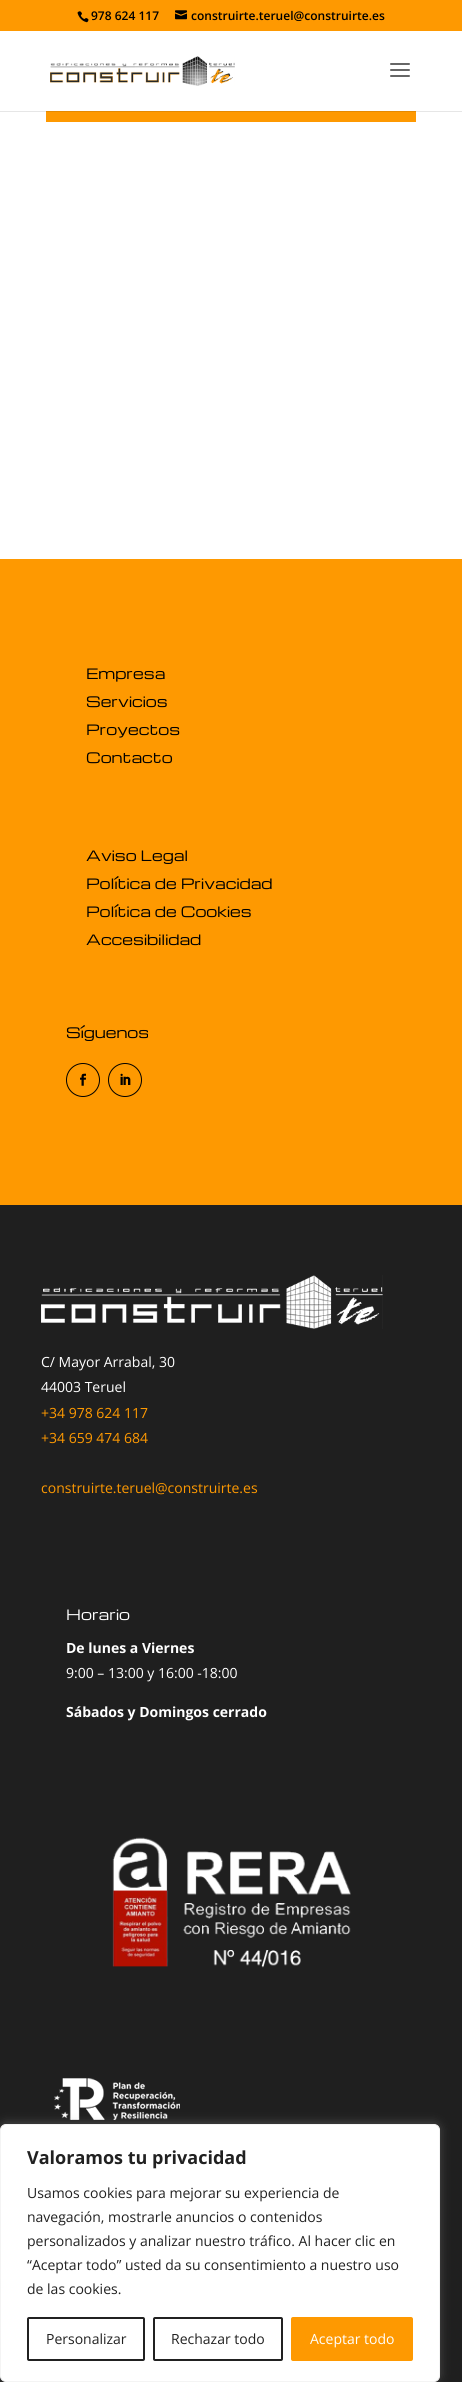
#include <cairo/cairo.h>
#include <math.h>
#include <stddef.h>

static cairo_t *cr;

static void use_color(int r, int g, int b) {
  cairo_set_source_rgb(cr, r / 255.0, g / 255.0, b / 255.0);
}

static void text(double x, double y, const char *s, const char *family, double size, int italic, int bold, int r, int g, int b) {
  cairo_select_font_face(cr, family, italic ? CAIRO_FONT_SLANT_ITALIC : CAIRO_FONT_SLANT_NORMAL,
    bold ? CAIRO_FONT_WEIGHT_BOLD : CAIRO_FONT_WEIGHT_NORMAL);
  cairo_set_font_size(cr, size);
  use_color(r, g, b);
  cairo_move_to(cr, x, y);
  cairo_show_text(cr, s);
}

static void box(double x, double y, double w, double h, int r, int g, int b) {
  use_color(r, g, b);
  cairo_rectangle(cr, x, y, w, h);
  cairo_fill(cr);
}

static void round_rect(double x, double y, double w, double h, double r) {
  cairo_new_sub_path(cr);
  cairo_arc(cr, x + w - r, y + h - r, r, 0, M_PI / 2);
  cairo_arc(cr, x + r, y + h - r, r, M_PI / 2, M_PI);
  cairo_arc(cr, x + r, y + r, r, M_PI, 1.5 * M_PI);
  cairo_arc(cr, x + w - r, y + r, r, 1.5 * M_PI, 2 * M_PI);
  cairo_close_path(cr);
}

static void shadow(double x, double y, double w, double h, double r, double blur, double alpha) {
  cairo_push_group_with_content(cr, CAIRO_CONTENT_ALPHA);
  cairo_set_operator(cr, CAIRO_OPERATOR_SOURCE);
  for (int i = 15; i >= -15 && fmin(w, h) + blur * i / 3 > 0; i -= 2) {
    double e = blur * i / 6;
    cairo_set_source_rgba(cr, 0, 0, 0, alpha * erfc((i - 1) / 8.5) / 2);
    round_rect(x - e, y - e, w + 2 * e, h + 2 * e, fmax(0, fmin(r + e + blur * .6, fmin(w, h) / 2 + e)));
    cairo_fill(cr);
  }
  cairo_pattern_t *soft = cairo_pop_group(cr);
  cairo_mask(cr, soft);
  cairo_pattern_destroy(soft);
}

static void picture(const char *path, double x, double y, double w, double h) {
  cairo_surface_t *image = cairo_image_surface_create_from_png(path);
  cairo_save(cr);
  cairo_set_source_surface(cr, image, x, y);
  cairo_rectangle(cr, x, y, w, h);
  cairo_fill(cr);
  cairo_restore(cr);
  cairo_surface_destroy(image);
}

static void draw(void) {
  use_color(255, 255, 255);
  cairo_paint(cr);
  box(0, 111, 462, 1, 230, 230, 230);
  box(0, 0, 462, 31, 254, 153, 1);
  picture("img_01.png", 77, 11, 12, 12);
  picture("img_02.png", 175, 10, 12, 10);
  picture("img_03.png", 50, 56, 185, 30);
  picture("img_04.png", 390, 63, 20, 14);
  box(46, 112, 370, 10, 254, 153, 1);
  box(46, 111, 370, 1, 229, 138, 1);
  box(0, 559, 462, 646, 254, 153, 1);
  cairo_arc(cr, 83, 1080, 16.5, 0, 2 * M_PI);
  use_color(0, 0, 0);
  cairo_set_line_width(cr, 1);
  cairo_stroke(cr);
  picture("img_05.png", 80, 1073, 6, 13);
  cairo_arc(cr, 125, 1080, 16.5, 0, 2 * M_PI);
  cairo_stroke(cr);
  picture("img_06.png", 120, 1073, 11, 12);
  box(0, 1205, 462, 1177, 31, 31, 31);
  picture("img_07.png", 41, 1275, 342, 54);
  picture("img_08.png", 112, 1837, 239, 131);
  picture("img_09.png", 54, 2078, 126, 42);
  use_color(172, 171, 171);
  shadow(0, 2123, 440, 258, 6, 5, 0.3);
  use_color(255, 255, 255);
  round_rect(0.5, 2124.5, 439, 257, 5.5);
  cairo_fill_preserve(cr);
  use_color(244, 244, 244);
  cairo_stroke(cr);
  round_rect(28, 2318, 116, 42, 1);
  use_color(33, 33, 33);
  cairo_set_line_width(cr, 2);
  cairo_stroke(cr);
  round_rect(154, 2318, 128, 42, 1);
  cairo_stroke(cr);
  use_color(254, 153, 1);
  round_rect(292, 2318, 120, 42, 1);
  cairo_fill_preserve(cr);
  cairo_stroke(cr);
  text(91, 20, "978 624 117", "Open Sans SemiBold", 12, 0, 0, 0, 0, 0);
  text(191, 20, "construirte.teruel@construirte.es", "Open Sans SemiBold", 12, 0, 0, 0, 0, 0);
  text(86, 679, "Empresa", "Michroma", 14, 0, 0, 0, 0, 0);
  text(86, 707, "Servicios", "Michroma", 14, 0, 0, 0, 0, 0);
  text(86, 735, "Proyectos", "Michroma", 14, 0, 0, 0, 0, 0);
  text(86, 763, "Contacto", "Michroma", 14, 0, 0, 0, 0, 0);
  text(86, 861, "Aviso Legal", "Michroma", 14, 0, 0, 0, 0, 0);
  text(86, 889, "Política de Privacidad", "Michroma", 14, 0, 0, 0, 0, 0);
  text(86, 917, "Política de Cookies", "Michroma", 14, 0, 0, 0, 0, 0);
  text(86, 945, "Accesibilidad", "Michroma", 14, 0, 0, 0, 0, 0);
  text(66, 1038, "Síguenos", "Michroma", 14, 0, 0, 0, 0, 0);
  text(41, 1367, "C/ Mayor Arrabal, 30", "Open Sans", 14, 0, 0, 255, 255, 255);
  text(41, 1392, "44003 Teruel", "Open Sans", 14, 0, 0, 255, 255, 255);
  text(41, 1418, "+34 978 624 117", "Open Sans", 14, 0, 0, 254, 153, 1);
  text(41, 1443, "+34 659 474 684", "Open Sans", 14, 0, 0, 254, 153, 1);
  text(41, 1493, "construirte.teruel@construirte.es", "Open Sans", 14, 0, 0, 254, 153, 1);
  text(66, 1620, "Horario", "Michroma", 14, 0, 0, 255, 255, 255);
  text(66, 1653, "De lunes a Viernes", "Open Sans", 14, 0, 1, 255, 255, 255);
  text(66, 1678, "9:00 – 13:00 y 16:00 -18:00", "Open Sans", 14, 0, 0, 255, 255, 255);
  text(66, 1717, "Sábados y Domingos cerrado", "Open Sans", 14, 0, 1, 255, 255, 255);
  text(27, 2164, "Valoramos tu privacidad", "Open Sans", 18, 0, 1, 33, 33, 33);
  text(27, 2198, "Usamos cookies para mejorar su experiencia de", "Open Sans", 14, 0, 0, 33, 33, 33);
  text(27, 2222, "navegación, mostrarle anuncios o contenidos", "Open Sans", 14, 0, 0, 33, 33, 33);
  text(27, 2246, "personalizados y analizar nuestro tráfico. Al hacer clic en", "Open Sans", 14, 0, 0, 33, 33, 33);
  text(27, 2270, "“Aceptar todo” usted da su consentimiento a nuestro uso", "Open Sans", 14, 0, 0, 33, 33, 33);
  text(27, 2294, "de las cookies.", "Open Sans", 14, 0, 0, 33, 33, 33);
  text(46, 2344, "Personalizar", "Open Sans", 14, 0, 0, 33, 33, 33);
  text(171, 2344, "Rechazar todo", "Open Sans", 14, 0, 0, 33, 33, 33);
  text(310, 2344, "Aceptar todo", "Open Sans", 14, 0, 0, 255, 255, 255);
}

int main(void) {
  cairo_surface_t *surface = cairo_image_surface_create(CAIRO_FORMAT_RGB24, 462, 2382);
  cr = cairo_create(surface);
  cairo_font_options_t *options = cairo_font_options_create();
  cairo_font_options_set_hint_metrics(options, CAIRO_HINT_METRICS_OFF);
  cairo_font_options_set_hint_style(options, CAIRO_HINT_STYLE_NONE);
  cairo_set_font_options(cr, options);
  cairo_set_miter_limit(cr, 4);
  draw();
  cairo_surface_write_to_png(surface, "out.png");
  cairo_font_options_destroy(options);
  cairo_destroy(cr);
  cairo_surface_destroy(surface);
  return 0;
}
